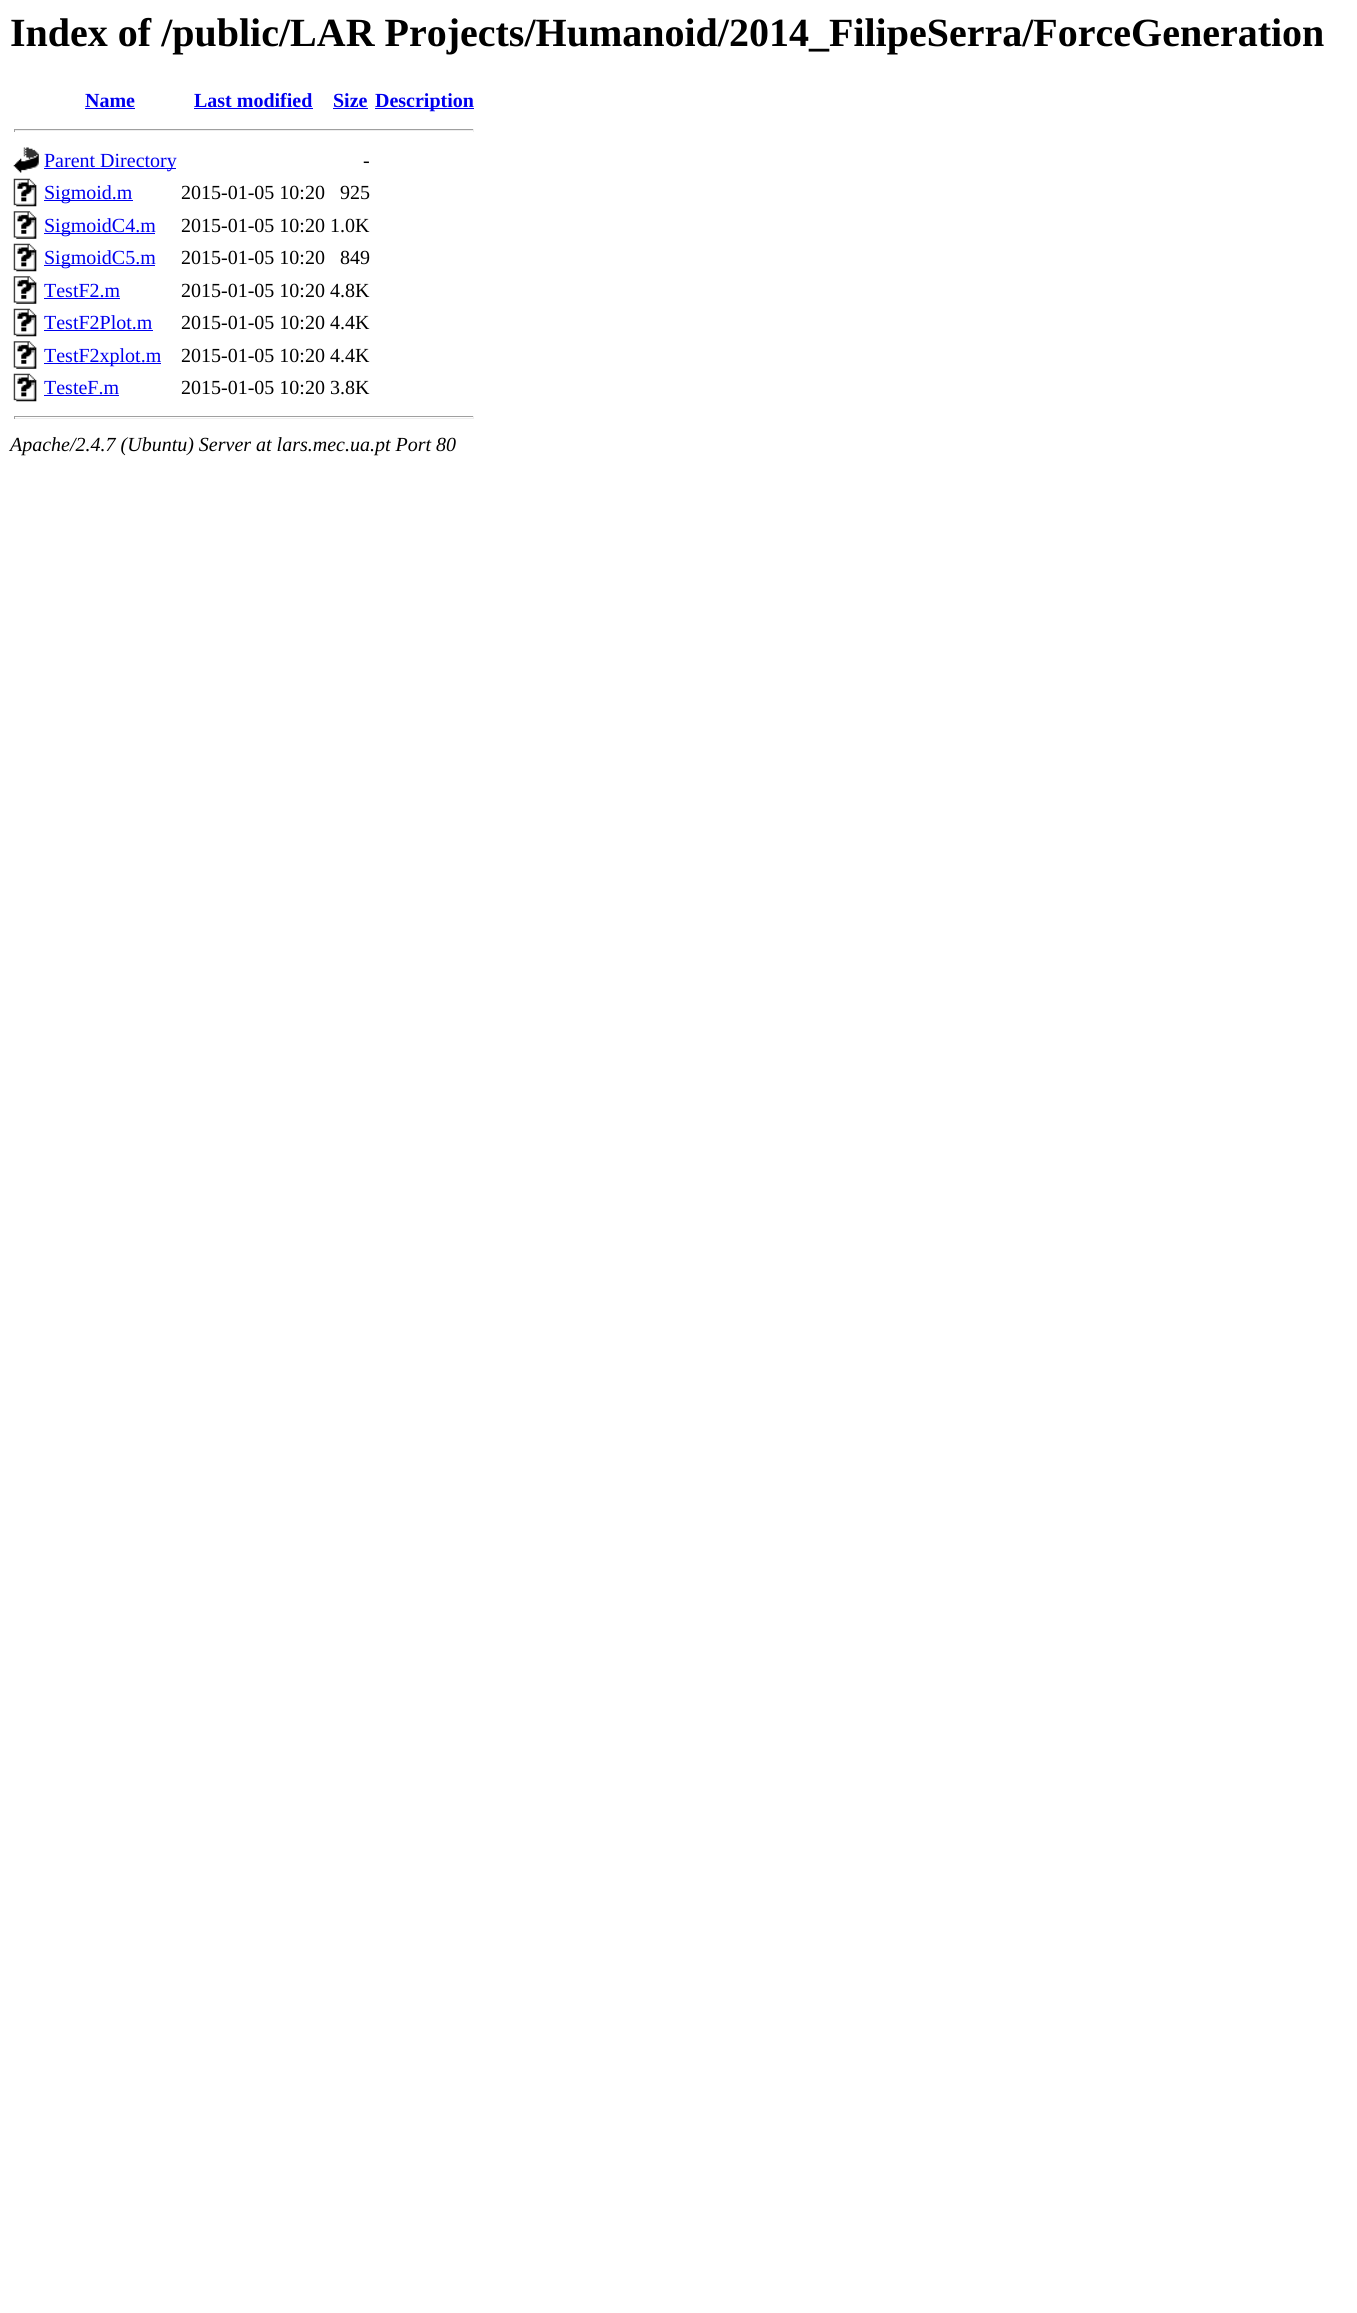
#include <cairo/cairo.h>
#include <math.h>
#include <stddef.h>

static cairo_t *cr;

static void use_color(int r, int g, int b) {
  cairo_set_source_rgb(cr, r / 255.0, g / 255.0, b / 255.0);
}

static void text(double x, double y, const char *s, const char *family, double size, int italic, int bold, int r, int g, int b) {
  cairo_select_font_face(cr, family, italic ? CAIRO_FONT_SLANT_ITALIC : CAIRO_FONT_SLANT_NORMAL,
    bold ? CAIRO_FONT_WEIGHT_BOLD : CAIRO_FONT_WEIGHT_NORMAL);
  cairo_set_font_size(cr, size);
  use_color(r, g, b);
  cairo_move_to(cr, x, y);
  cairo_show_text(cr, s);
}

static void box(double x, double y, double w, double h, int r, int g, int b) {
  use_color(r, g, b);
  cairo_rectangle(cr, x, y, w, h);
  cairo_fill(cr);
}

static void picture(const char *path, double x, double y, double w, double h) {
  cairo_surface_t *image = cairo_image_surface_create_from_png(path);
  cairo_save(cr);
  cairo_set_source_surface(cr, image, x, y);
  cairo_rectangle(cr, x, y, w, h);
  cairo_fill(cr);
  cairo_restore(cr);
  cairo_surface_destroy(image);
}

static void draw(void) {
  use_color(255, 255, 255);
  cairo_paint(cr);
  box(85, 108, 50, 1, 0, 0, 238);
  box(194, 108, 119, 1, 0, 0, 238);
  box(333, 108, 35, 1, 0, 0, 238);
  box(375, 108, 99, 1, 0, 0, 238);
  box(14, 129, 460, 1, 159, 159, 159);
  box(473, 129, 1, 3, 238, 238, 238);
  box(14, 130, 460, 1, 238, 238, 238);
  box(14, 129, 1, 3, 159, 159, 159);
  picture("img_01.png", 13, 147, 26, 26);
  box(44, 168, 132, 1, 0, 0, 238);
  picture("img_02.png", 13, 178, 24, 29);
  box(44, 200, 89, 1, 0, 0, 238);
  picture("img_03.png", 13, 211, 24, 28);
  box(44, 233, 111, 1, 0, 0, 238);
  picture("img_02.png", 13, 243, 24, 29);
  box(44, 265, 111, 1, 0, 0, 238);
  picture("img_04.png", 13, 276, 24, 28);
  box(44, 298, 76, 1, 0, 0, 238);
  picture("img_02.png", 13, 308, 24, 29);
  box(44, 330, 109, 1, 0, 0, 238);
  picture("img_03.png", 13, 341, 24, 28);
  box(44, 363, 117, 1, 0, 0, 238);
  picture("img_02.png", 13, 373, 24, 29);
  box(44, 395, 75, 1, 0, 0, 238);
  box(14, 416, 460, 1, 159, 159, 159);
  box(473, 416, 1, 3, 238, 238, 238);
  box(14, 418, 460, 1, 238, 238, 238);
  box(14, 416, 1, 3, 159, 159, 159);
  text(10, 46, "Index of /public/LAR Projects/Humanoid/2014_FilipeSerra/ForceGeneration", "Liberation Serif", 40, 0, 1, 0, 0, 0);
  text(85, 107, "Name", "Liberation Serif", 20, 0, 1, 0, 0, 238);
  text(194, 107, "Last modified", "Liberation Serif", 20, 0, 1, 0, 0, 238);
  text(333, 107, "Size", "Liberation Serif", 20, 0, 1, 0, 0, 238);
  text(375, 107, "Description", "Liberation Serif", 20, 0, 1, 0, 0, 238);
  text(44, 167, "Parent Directory", "Liberation Serif", 20, 0, 0, 0, 0, 238);
  text(363, 167, "-", "Liberation Serif", 20, 0, 0, 0, 0, 0);
  text(44, 199, "Sigmoid.m", "Liberation Serif", 20, 0, 0, 0, 0, 238);
  text(181, 199, "2015-01-05 10:20", "Liberation Serif", 20, 0, 0, 0, 0, 0);
  text(340, 199, "925", "Liberation Serif", 20, 0, 0, 0, 0, 0);
  text(44, 232, "SigmoidC4.m", "Liberation Serif", 20, 0, 0, 0, 0, 238);
  text(181, 232, "2015-01-05 10:20 1.0K", "Liberation Serif", 20, 0, 0, 0, 0, 0);
  text(44, 264, "SigmoidC5.m", "Liberation Serif", 20, 0, 0, 0, 0, 238);
  text(181, 264, "2015-01-05 10:20", "Liberation Serif", 20, 0, 0, 0, 0, 0);
  text(340, 264, "849", "Liberation Serif", 20, 0, 0, 0, 0, 0);
  text(44, 297, "TestF2.m", "Liberation Serif", 20, 0, 0, 0, 0, 238);
  text(181, 297, "2015-01-05 10:20 4.8K", "Liberation Serif", 20, 0, 0, 0, 0, 0);
  text(44, 329, "TestF2Plot.m", "Liberation Serif", 20, 0, 0, 0, 0, 238);
  text(181, 329, "2015-01-05 10:20 4.4K", "Liberation Serif", 20, 0, 0, 0, 0, 0);
  text(44, 362, "TestF2xplot.m", "Liberation Serif", 20, 0, 0, 0, 0, 238);
  text(181, 362, "2015-01-05 10:20 4.4K", "Liberation Serif", 20, 0, 0, 0, 0, 0);
  text(44, 394, "TesteF.m", "Liberation Serif", 20, 0, 0, 0, 0, 238);
  text(181, 394, "2015-01-05 10:20 3.8K", "Liberation Serif", 20, 0, 0, 0, 0, 0);
  text(10, 451, "Apache/2.4.7 (Ubuntu) Server at lars.mec.ua.pt Port 80", "Liberation Serif", 20, 1, 0, 0, 0, 0);
}

int main(void) {
  cairo_surface_t *surface = cairo_image_surface_create(CAIRO_FORMAT_RGB24, 1357, 2313);
  cr = cairo_create(surface);
  cairo_font_options_t *options = cairo_font_options_create();
  cairo_font_options_set_hint_metrics(options, CAIRO_HINT_METRICS_OFF);
  cairo_font_options_set_hint_style(options, CAIRO_HINT_STYLE_NONE);
  cairo_set_font_options(cr, options);
  cairo_set_miter_limit(cr, 4);
  draw();
  cairo_surface_write_to_png(surface, "out.png");
  cairo_font_options_destroy(options);
  cairo_destroy(cr);
  cairo_surface_destroy(surface);
  return 0;
}
